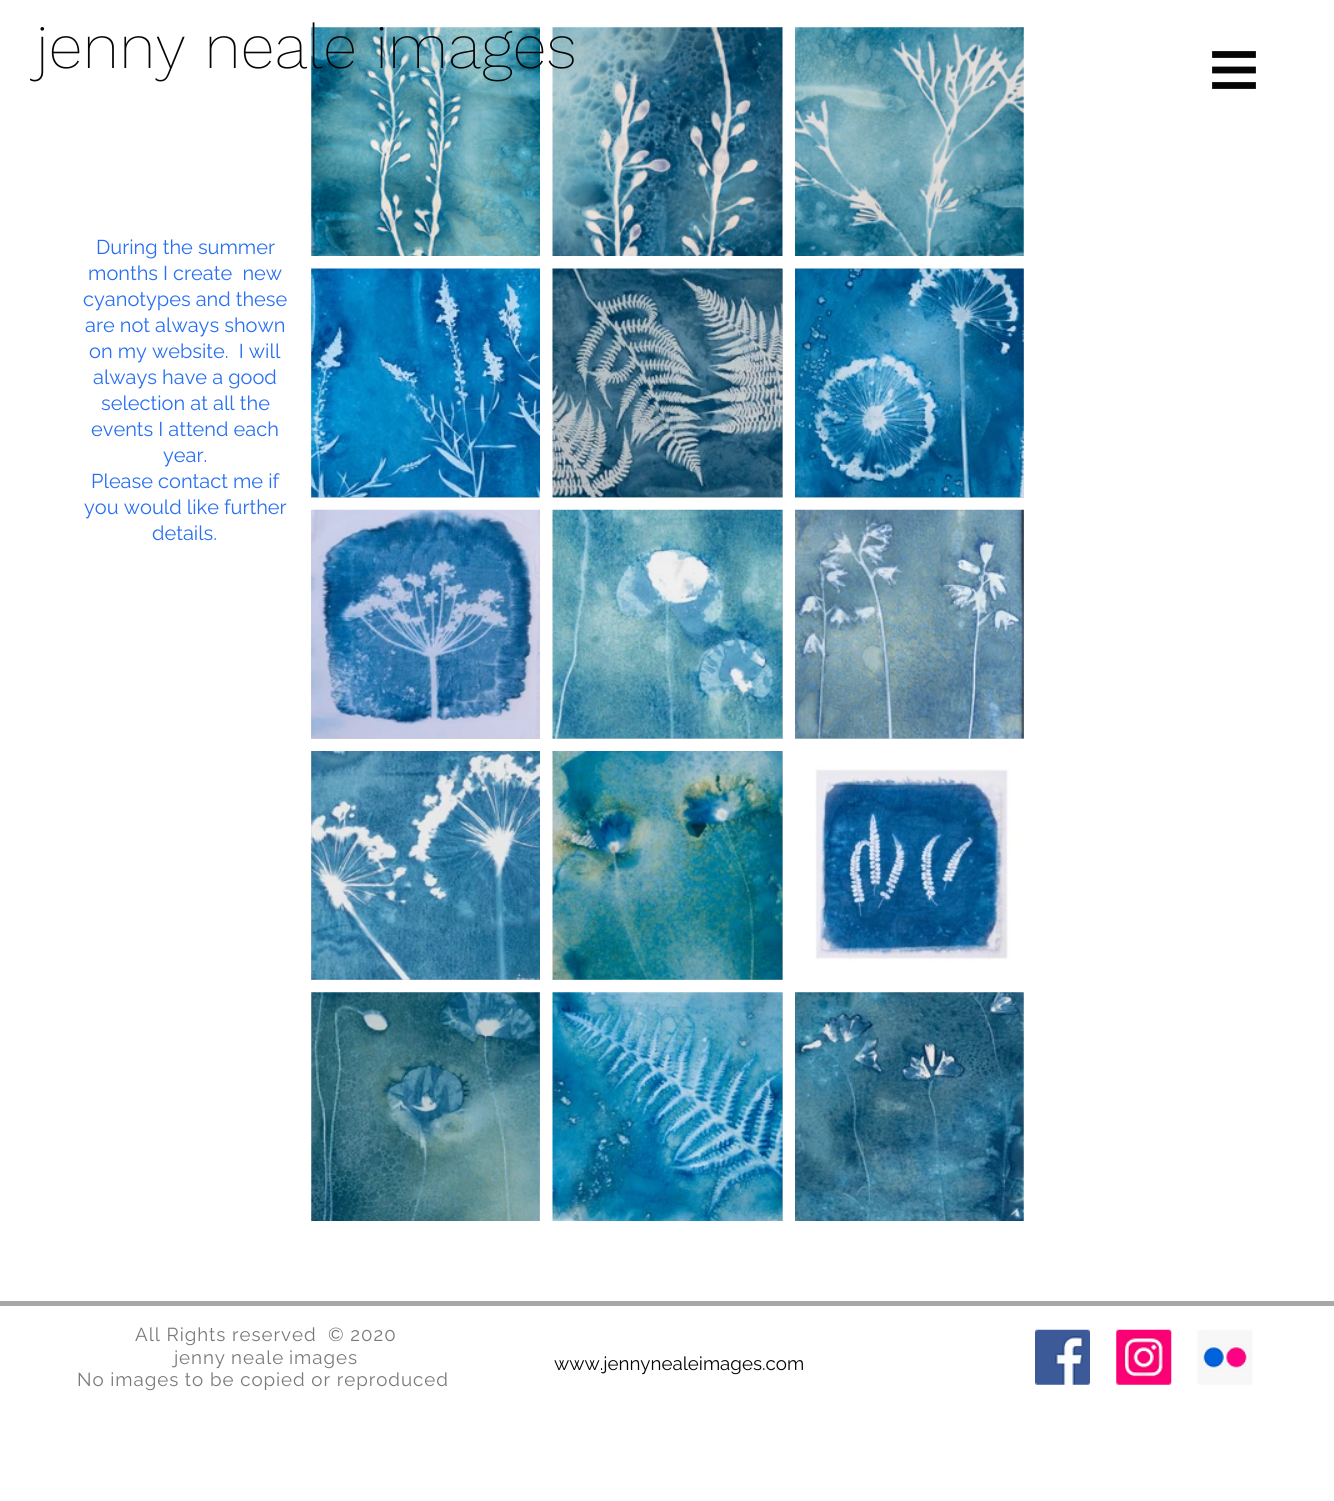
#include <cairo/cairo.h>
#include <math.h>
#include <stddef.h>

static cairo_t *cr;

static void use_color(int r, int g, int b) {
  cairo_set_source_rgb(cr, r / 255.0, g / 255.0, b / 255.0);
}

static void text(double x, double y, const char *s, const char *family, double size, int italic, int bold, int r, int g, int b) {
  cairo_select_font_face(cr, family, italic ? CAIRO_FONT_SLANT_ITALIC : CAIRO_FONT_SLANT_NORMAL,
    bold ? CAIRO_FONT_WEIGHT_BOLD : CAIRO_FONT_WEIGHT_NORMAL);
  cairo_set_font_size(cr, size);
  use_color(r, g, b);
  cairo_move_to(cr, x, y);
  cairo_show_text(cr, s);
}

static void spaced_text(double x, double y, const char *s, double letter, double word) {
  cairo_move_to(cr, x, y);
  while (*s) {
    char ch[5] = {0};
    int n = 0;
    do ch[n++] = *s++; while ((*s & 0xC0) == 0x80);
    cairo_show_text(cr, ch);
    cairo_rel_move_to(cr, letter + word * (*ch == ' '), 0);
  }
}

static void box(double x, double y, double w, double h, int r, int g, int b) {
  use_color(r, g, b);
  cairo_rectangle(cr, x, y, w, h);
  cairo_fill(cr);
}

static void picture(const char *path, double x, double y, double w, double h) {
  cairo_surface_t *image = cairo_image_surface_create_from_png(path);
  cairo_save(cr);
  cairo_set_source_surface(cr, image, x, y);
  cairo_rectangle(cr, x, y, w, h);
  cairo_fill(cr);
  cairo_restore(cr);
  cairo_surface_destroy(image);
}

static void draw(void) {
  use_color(255, 255, 255);
  cairo_paint(cr);
  cairo_new_path(cr);
  cairo_move_to(cr, 1254, 53);
  cairo_line_to(cr, 1254, 56);
  cairo_line_to(cr, 1214, 56);
  cairo_line_to(cr, 1214, 53);
  cairo_close_path(cr);
  cairo_move_to(cr, 1254, 68.5);
  cairo_line_to(cr, 1254, 71.5);
  cairo_line_to(cr, 1214, 71.5);
  cairo_line_to(cr, 1214, 68.5);
  cairo_close_path(cr);
  cairo_move_to(cr, 1254, 84);
  cairo_line_to(cr, 1254, 87);
  cairo_line_to(cr, 1214, 87);
  cairo_line_to(cr, 1214, 84);
  cairo_close_path(cr);
  use_color(5, 5, 5);
  cairo_set_line_width(cr, 3.8);
  cairo_stroke(cr);
  picture("img_01.png", 311, 27, 229, 229);
  picture("img_02.png", 552, 27, 231, 229);
  picture("img_03.png", 795, 27, 229, 229);
  box(311, 269, 229, 229, 207, 207, 207);
  picture("img_04.png", 311, 268, 229, 230);
  box(553, 269, 230, 229, 207, 207, 207);
  picture("img_05.png", 552, 268, 231, 230);
  box(795, 269, 229, 229, 207, 207, 207);
  picture("img_06.png", 795, 268, 229, 230);
  box(311, 510, 229, 229, 207, 207, 207);
  picture("img_07.png", 311, 509, 229, 230);
  box(553, 510, 230, 229, 207, 207, 207);
  picture("img_08.png", 552, 509, 231, 230);
  box(795, 510, 229, 229, 207, 207, 207);
  picture("img_09.png", 795, 509, 229, 230);
  box(311, 751, 229, 229, 207, 207, 207);
  picture("img_10.png", 311, 751, 229, 229);
  box(553, 751, 230, 229, 207, 207, 207);
  picture("img_11.png", 552, 751, 231, 229);
  picture("img_12.png", 795, 751, 229, 229);
  picture("img_13.png", 311, 992, 229, 229);
  box(782, 993, 1, 228, 207, 207, 207);
  picture("img_14.png", 552, 992, 231, 229);
  picture("img_15.png", 795, 992, 229, 229);
  box(0, 1301, 1334, 5, 167, 167, 167);
  picture("img_16.png", 1035, 1329, 55, 56);
  picture("img_17.png", 1116, 1329, 56, 56);
  picture("img_18.png", 1197, 1330, 56, 55);
  text(36, 68, "jenny neale images", "Work Sans ExtraLight", 62.5, 0, 0, 5, 5, 5);
  text(96, 254, "During the summer", "Raleway", 20, 0, 0, 40, 111, 243);
  text(88, 280, "months I create  new", "Raleway", 20, 0, 0, 40, 111, 243);
  text(83, 306, "cyanotypes and these", "Raleway", 20, 0, 0, 40, 111, 243);
  text(85, 332, "are not always shown", "Raleway", 20, 0, 0, 40, 111, 243);
  text(89, 358, "on my website.  I will", "Raleway", 20, 0, 0, 40, 111, 243);
  text(93, 384, "always have a good", "Raleway", 20, 0, 0, 40, 111, 243);
  text(101, 410, "selection at all the", "Raleway", 20, 0, 0, 40, 111, 243);
  text(91, 436, "events I attend each", "Raleway", 20, 0, 0, 40, 111, 243);
  text(163, 462, "year.", "Raleway", 20, 0, 0, 40, 111, 243);
  text(91, 488, "Please contact me if", "Raleway", 20, 0, 0, 40, 111, 243);
  text(84, 514, "you would like further", "Raleway", 20, 0, 0, 40, 111, 243);
  text(152, 540, "details.", "Raleway", 20, 0, 0, 40, 111, 243);
  cairo_select_font_face(cr, "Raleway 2", CAIRO_FONT_SLANT_NORMAL, CAIRO_FONT_WEIGHT_NORMAL);
  cairo_set_font_size(cr, 18.75);
  use_color(121, 121, 121);
  spaced_text(135, 1341, "All Rights reserved  © 2020", 0.95, 0);
  spaced_text(174, 1364, "j", 0.95, 0);
  spaced_text(179, 1364, "enny", 1, 0);
  spaced_text(231, 1364, "n", 0.95, 0);
  spaced_text(243, 1364, "eale", 1, 0);
  spaced_text(289, 1364, "images", 0.95, 0);
  spaced_text(77, 1386, "No images to be copied or reproduced", 0.95, 0);
  text(554, 1370, "www.jennynealeimages.com", "Raleway 2", 18.75, 0, 0, 5, 5, 5);
}

int main(void) {
  cairo_surface_t *surface = cairo_image_surface_create(CAIRO_FORMAT_RGB24, 1334, 1501);
  cr = cairo_create(surface);
  cairo_font_options_t *options = cairo_font_options_create();
  cairo_font_options_set_hint_metrics(options, CAIRO_HINT_METRICS_OFF);
  cairo_font_options_set_hint_style(options, CAIRO_HINT_STYLE_NONE);
  cairo_set_font_options(cr, options);
  cairo_set_miter_limit(cr, 4);
  draw();
  cairo_surface_write_to_png(surface, "out.png");
  cairo_font_options_destroy(options);
  cairo_destroy(cr);
  cairo_surface_destroy(surface);
  return 0;
}
